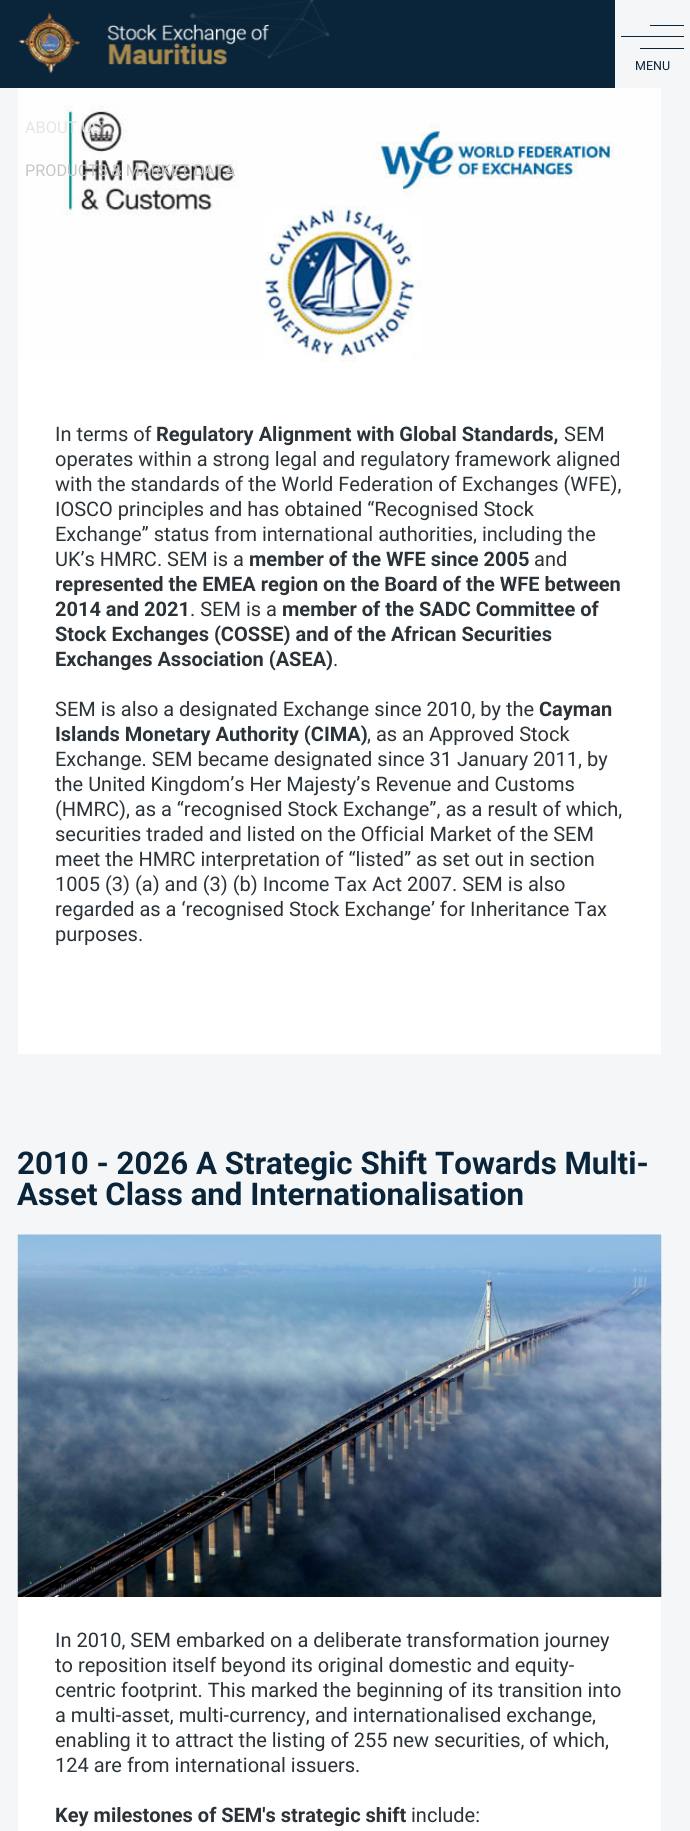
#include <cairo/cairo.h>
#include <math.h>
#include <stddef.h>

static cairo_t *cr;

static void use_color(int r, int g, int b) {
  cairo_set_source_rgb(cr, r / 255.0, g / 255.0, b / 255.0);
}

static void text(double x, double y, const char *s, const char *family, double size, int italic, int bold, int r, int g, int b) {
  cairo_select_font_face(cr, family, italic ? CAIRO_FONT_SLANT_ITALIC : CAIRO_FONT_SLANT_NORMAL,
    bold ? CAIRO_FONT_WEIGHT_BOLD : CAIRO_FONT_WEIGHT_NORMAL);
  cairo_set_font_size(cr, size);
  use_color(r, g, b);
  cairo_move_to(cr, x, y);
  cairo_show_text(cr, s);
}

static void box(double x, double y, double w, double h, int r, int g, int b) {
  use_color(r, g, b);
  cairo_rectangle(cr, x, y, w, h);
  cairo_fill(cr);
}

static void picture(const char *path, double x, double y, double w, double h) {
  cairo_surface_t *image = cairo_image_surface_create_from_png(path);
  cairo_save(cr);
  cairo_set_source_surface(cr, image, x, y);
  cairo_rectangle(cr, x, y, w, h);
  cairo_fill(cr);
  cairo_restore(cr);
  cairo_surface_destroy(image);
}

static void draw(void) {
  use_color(245, 246, 248);
  cairo_paint(cr);
  box(0, 0, 615, 88, 10, 37, 58);
  picture("img_01.png", 190, 0, 140, 59);
  picture("img_02.png", 18, 12, 251, 62);
  box(650, 25, 34, 1, 10, 37, 58);
  box(621, 36, 63, 1, 10, 37, 58);
  box(640, 48, 44, 1, 10, 37, 58);
  box(18, 362, 643, 692, 255, 255, 255);
  picture("img_03.png", 18, 88, 643, 274);
  box(18, 1597, 643, 234, 255, 255, 255);
  picture("img_04.png", 17, 1234, 645, 363);
  text(635, 70, "MENU", "Roboto", 12.5, 0, 0, 10, 37, 58);
  text(25, 133, "ABOUT US", "Roboto", 16.25, 0, 0, 227, 229, 230);
  text(25, 176, "PRODUCTS & MARKET DATA", "Roboto", 16.25, 0, 0, 197, 198, 198);
  text(55, 441, "In terms of", "Roboto", 20, 0, 0, 44, 51, 56);
  text(156, 441, "Regulatory Alignment with Global Standards,", "Roboto", 20, 0, 1, 44, 51, 56);
  text(564, 441, "SEM", "Roboto", 20, 0, 0, 44, 51, 56);
  text(55, 466, "operates within a strong legal and regulatory framework aligned", "Roboto", 20, 0, 0, 44, 51, 56);
  text(55, 491, "with the standards of the World Federation of Exchanges (WFE),", "Roboto", 20, 0, 0, 44, 51, 56);
  text(55, 516, "IOSCO principles and has obtained “Recognised Stock", "Roboto", 20, 0, 0, 44, 51, 56);
  text(55, 541, "Exchange” status from international authorities, including the", "Roboto", 20, 0, 0, 44, 51, 56);
  text(55, 566, "UK’s HMRC. SEM is a", "Roboto", 20, 0, 0, 44, 51, 56);
  text(249, 566, "member of the WFE since 2005", "Roboto", 20, 0, 1, 44, 51, 56);
  text(534, 566, "and", "Roboto", 20, 0, 0, 44, 51, 56);
  text(55, 591, "represented the EMEA region on the Board of the WFE between", "Roboto", 20, 0, 1, 44, 51, 56);
  text(55, 616, "2014 and 2021", "Roboto", 20, 0, 1, 44, 51, 56);
  text(190, 616, ". SEM is a", "Roboto", 20, 0, 0, 44, 51, 56);
  text(282, 616, "member of the SADC Committee of", "Roboto", 20, 0, 1, 44, 51, 56);
  text(55, 641, "Stock Exchanges (COSSE) and of the African Securities", "Roboto", 20, 0, 1, 44, 51, 56);
  text(55, 666, "Exchanges Association (ASEA)", "Roboto", 20, 0, 1, 44, 51, 56);
  text(333, 666, ".", "Roboto", 20, 0, 0, 44, 51, 56);
  text(55, 716, "SEM is also a designated Exchange since 2010, by the", "Roboto", 20, 0, 0, 44, 51, 56);
  text(539, 716, "Cayman", "Roboto", 20, 0, 1, 44, 51, 56);
  text(55, 741, "Islands Monetary Authority (CIMA)", "Roboto", 20, 0, 1, 44, 51, 56);
  text(367, 741, ", as an Approved Stock", "Roboto", 20, 0, 0, 44, 51, 56);
  text(55, 766, "Exchange. SEM became designated since 31 January 2011, by", "Roboto", 20, 0, 0, 44, 51, 56);
  text(55, 791, "the United Kingdom’s Her Majesty’s Revenue and Customs", "Roboto", 20, 0, 0, 44, 51, 56);
  text(55, 816, "(HMRC), as a “recognised Stock Exchange”, as a result of which,", "Roboto", 20, 0, 0, 44, 51, 56);
  text(55, 841, "securities traded and listed on the Official Market of the SEM", "Roboto", 20, 0, 0, 44, 51, 56);
  text(55, 866, "meet the HMRC interpretation of “listed” as set out in section", "Roboto", 20, 0, 0, 44, 51, 56);
  text(55, 891, "1005 (3) (a) and (3) (b) Income Tax Act 2007. SEM is also", "Roboto", 20, 0, 0, 44, 51, 56);
  text(55, 916, "regarded as a ‘recognised Stock Exchange’ for Inheritance Tax", "Roboto", 20, 0, 0, 44, 51, 56);
  text(55, 941, "purposes.", "Roboto", 20, 0, 0, 44, 51, 56);
  text(17, 1174, "2010 - 2026 A Strategic Shift Towards Multi-", "Roboto", 31.25, 0, 1, 10, 37, 58);
  text(17, 1205, "Asset Class and Internationalisation", "Roboto", 31.25, 0, 1, 10, 37, 58);
  text(55, 1647, "In 2010, SEM embarked on a deliberate transformation journey", "Roboto", 20, 0, 0, 44, 51, 56);
  text(55, 1672, "to reposition itself beyond its original domestic and equity-", "Roboto", 20, 0, 0, 44, 51, 56);
  text(55, 1697, "centric footprint. This marked the beginning of its transition into", "Roboto", 20, 0, 0, 44, 51, 56);
  text(55, 1722, "a multi-asset, multi-currency, and internationalised exchange,", "Roboto", 20, 0, 0, 44, 51, 56);
  text(55, 1747, "enabling it to attract the listing of 255 new securities, of which,", "Roboto", 20, 0, 0, 44, 51, 56);
  text(55, 1772, "124 are from international issuers.", "Roboto", 20, 0, 0, 44, 51, 56);
  text(55, 1822, "Key milestones of SEM's strategic shift", "Roboto", 20, 0, 1, 44, 51, 56);
  text(411, 1822, "include:", "Roboto", 20, 0, 0, 44, 51, 56);
}

int main(void) {
  cairo_surface_t *surface = cairo_image_surface_create(CAIRO_FORMAT_RGB24, 690, 1831);
  cr = cairo_create(surface);
  cairo_font_options_t *options = cairo_font_options_create();
  cairo_font_options_set_hint_metrics(options, CAIRO_HINT_METRICS_OFF);
  cairo_font_options_set_hint_style(options, CAIRO_HINT_STYLE_NONE);
  cairo_set_font_options(cr, options);
  cairo_set_miter_limit(cr, 4);
  draw();
  cairo_surface_write_to_png(surface, "out.png");
  cairo_font_options_destroy(options);
  cairo_destroy(cr);
  cairo_surface_destroy(surface);
  return 0;
}
